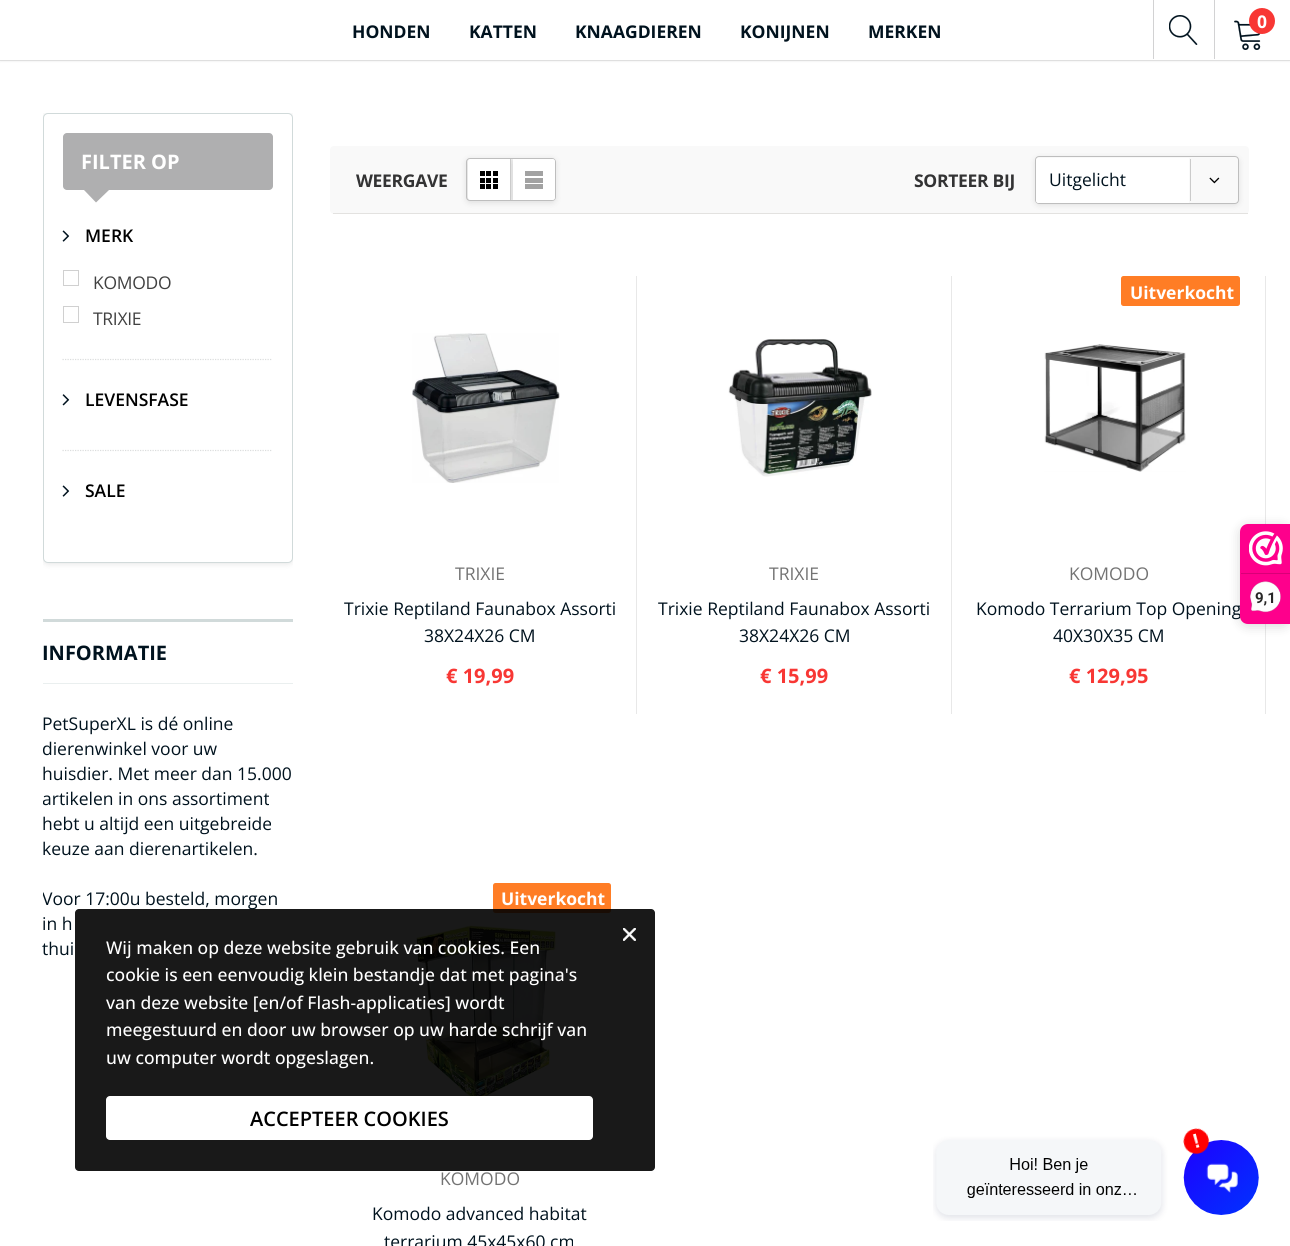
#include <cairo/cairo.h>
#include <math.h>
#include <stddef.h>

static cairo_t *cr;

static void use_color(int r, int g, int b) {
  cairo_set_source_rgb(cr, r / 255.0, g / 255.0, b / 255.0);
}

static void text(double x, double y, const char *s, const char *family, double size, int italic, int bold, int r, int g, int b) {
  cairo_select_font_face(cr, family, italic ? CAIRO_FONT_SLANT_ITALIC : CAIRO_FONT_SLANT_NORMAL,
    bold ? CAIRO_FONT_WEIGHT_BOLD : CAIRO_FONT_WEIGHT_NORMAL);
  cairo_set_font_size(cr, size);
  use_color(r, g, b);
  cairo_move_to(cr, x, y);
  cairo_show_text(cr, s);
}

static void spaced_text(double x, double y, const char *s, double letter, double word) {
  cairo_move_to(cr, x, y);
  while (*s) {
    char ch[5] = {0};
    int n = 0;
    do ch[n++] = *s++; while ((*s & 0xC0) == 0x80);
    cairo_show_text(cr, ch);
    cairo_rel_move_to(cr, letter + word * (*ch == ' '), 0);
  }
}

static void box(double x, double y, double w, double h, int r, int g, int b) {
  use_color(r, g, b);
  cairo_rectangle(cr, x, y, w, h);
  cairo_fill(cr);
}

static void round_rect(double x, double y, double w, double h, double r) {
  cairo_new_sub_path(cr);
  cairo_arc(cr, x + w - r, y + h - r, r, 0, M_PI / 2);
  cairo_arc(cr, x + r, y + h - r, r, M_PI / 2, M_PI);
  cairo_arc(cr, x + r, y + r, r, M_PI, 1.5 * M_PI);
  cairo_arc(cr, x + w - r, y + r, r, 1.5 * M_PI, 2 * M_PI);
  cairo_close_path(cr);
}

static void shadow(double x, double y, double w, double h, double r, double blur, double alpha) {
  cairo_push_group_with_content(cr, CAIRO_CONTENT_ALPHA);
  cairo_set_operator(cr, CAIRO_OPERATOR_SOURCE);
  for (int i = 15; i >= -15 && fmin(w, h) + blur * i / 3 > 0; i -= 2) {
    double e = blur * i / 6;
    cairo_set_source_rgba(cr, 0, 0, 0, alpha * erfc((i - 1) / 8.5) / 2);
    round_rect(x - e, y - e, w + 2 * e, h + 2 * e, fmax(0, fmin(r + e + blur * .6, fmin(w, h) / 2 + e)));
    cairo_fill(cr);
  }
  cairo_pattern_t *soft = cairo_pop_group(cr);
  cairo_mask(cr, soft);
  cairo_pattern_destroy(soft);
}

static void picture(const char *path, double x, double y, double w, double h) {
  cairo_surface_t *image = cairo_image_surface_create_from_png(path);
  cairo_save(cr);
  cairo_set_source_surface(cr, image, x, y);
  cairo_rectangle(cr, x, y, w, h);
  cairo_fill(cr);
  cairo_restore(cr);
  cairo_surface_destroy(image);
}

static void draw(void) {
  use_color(255, 255, 255);
  cairo_paint(cr);
  use_color(0, 0, 0);
  shadow(0, 1, 1290, 60, 0, 1, 0.1);
  cairo_rectangle(cr, -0.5, -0.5, 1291, 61);
  cairo_set_source_rgba(cr, 0, 0, 0, 0.06);
  cairo_set_line_width(cr, 1);
  cairo_stroke(cr);
  box(0, 0, 1290, 60, 255, 255, 255);
  picture("img_01.png", 1234, 20, 27, 30);
  use_color(248, 55, 52);
  cairo_arc(cr, 1262, 21, 13, 0, 2 * M_PI);
  cairo_fill(cr);
  box(1214, 0, 1, 59, 210, 210, 211);
  box(1153, 0, 1, 59, 210, 210, 211);
  picture("img_02.png", 1169, 15, 29, 30);
  cairo_save(cr);
  cairo_rectangle(cr, 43, 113, 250, 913);
  cairo_clip(cr);
  use_color(0, 0, 0);
  shadow(43, 114, 250, 450, 5, 3, 0.1);
  cairo_restore(cr);
  use_color(255, 255, 255);
  round_rect(43.5, 113.5, 249, 449, 4.5);
  cairo_fill_preserve(cr);
  use_color(209, 218, 218);
  cairo_stroke(cr);
  use_color(175, 175, 176);
  round_rect(63, 133, 210, 57, 4);
  cairo_fill(cr);
  cairo_new_path(cr);
  cairo_move_to(cr, 84, 190);
  cairo_line_to(cr, 109, 190);
  cairo_line_to(cr, 96, 202.5);
  cairo_close_path(cr);
  cairo_fill(cr);
  cairo_new_path(cr);
  cairo_move_to(cr, 62.5, 359.5);
  cairo_line_to(cr, 272.5, 359.5);
  use_color(219, 221, 221);
  cairo_set_line_width(cr, 1.2);
  cairo_set_dash(cr, (double[]){1.25, 1.25}, 2, 0);
  cairo_stroke(cr);
  picture("img_03.png", 62, 230, 8, 12);
  cairo_rectangle(cr, 63.5, 270.5, 15, 15);
  use_color(208, 208, 208);
  cairo_set_line_width(cr, 1);
  cairo_set_dash(cr, NULL, 0, 0);
  cairo_stroke(cr);
  cairo_rectangle(cr, 63.5, 306.5, 15, 16);
  cairo_stroke(cr);
  cairo_new_path(cr);
  cairo_move_to(cr, 62.5, 450.5);
  cairo_line_to(cr, 272.5, 450.5);
  use_color(219, 221, 221);
  cairo_set_line_width(cr, 1.2);
  cairo_set_dash(cr, (double[]){1.25, 1.25}, 2, 0);
  cairo_stroke(cr);
  picture("img_04.png", 62, 394, 8, 12);
  picture("img_03.png", 62, 485, 8, 12);
  box(43, 619, 250, 3, 209, 218, 218);
  box(43, 683, 250, 1, 234, 239, 239);
  use_color(249, 249, 249);
  round_rect(330, 146, 919, 68, 4);
  cairo_fill(cr);
  box(333, 213, 915, 1, 227, 226, 224);
  use_color(0, 0, 0);
  shadow(466, 159, 90, 44, 4, 3, 0.1);
  round_rect(466.5, 158.5, 89, 42, 3.5);
  use_color(190, 190, 190);
  cairo_set_line_width(cr, 1);
  cairo_set_dash(cr, NULL, 0, 0);
  cairo_stroke(cr);
  use_color(255, 255, 255);
  cairo_new_path(cr);
  cairo_move_to(cr, 470.5, 159);
  cairo_line_to(cr, 511, 159);
  cairo_line_to(cr, 511, 200);
  cairo_line_to(cr, 470.5, 200);
  cairo_curve_to(cr, 469, 200, 468, 199, 468, 197.5);
  cairo_line_to(cr, 468, 161.5);
  cairo_curve_to(cr, 468, 160, 469, 159, 470.5, 159);
  cairo_close_path(cr);
  cairo_fill(cr);
  box(510, 159, 1, 41, 203, 203, 203);
  box(486, 171, 5, 5, 0, 0, 0);
  box(480, 171, 5, 5, 0, 0, 0);
  box(493, 171, 5, 5, 0, 0, 0);
  box(486, 178, 5, 5, 0, 0, 0);
  box(480, 178, 5, 5, 0, 0, 0);
  box(493, 178, 5, 5, 0, 0, 0);
  box(486, 184, 5, 5, 0, 0, 0);
  box(480, 184, 5, 5, 0, 0, 0);
  box(493, 184, 5, 5, 0, 0, 0);
  use_color(255, 255, 255);
  cairo_new_path(cr);
  cairo_move_to(cr, 513, 159);
  cairo_line_to(cr, 552.5, 159);
  cairo_curve_to(cr, 554, 159, 555, 160, 555, 161.5);
  cairo_line_to(cr, 555, 197.5);
  cairo_curve_to(cr, 555, 199, 554, 200, 552.5, 200);
  cairo_line_to(cr, 513, 200);
  cairo_close_path(cr);
  cairo_fill(cr);
  box(525, 171, 18, 5, 162, 162, 162);
  box(525, 178, 18, 5, 162, 162, 162);
  box(525, 184, 18, 5, 162, 162, 162);
  cairo_save(cr);
  cairo_set_fill_rule(cr, CAIRO_FILL_RULE_EVEN_ODD);
  cairo_new_path(cr);
  cairo_move_to(cr, 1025, 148);
  cairo_line_to(cr, 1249, 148);
  cairo_line_to(cr, 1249, 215);
  cairo_line_to(cr, 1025, 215);
  cairo_close_path(cr);
  cairo_move_to(cr, 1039, 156);
  cairo_line_to(cr, 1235, 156);
  cairo_curve_to(cr, 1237, 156, 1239, 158, 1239, 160);
  cairo_line_to(cr, 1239, 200);
  cairo_curve_to(cr, 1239, 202, 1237, 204, 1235, 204);
  cairo_line_to(cr, 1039, 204);
  cairo_curve_to(cr, 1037, 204, 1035, 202, 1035, 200);
  cairo_line_to(cr, 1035, 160);
  cairo_curve_to(cr, 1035, 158, 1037, 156, 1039, 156);
  cairo_close_path(cr);
  cairo_clip(cr);
  use_color(0, 0, 0);
  shadow(1035, 158, 204, 47, 4, 3, 0.1);
  cairo_restore(cr);
  round_rect(1035.5, 156.5, 203, 47, 3.5);
  use_color(190, 190, 190);
  cairo_stroke(cr);
  use_color(255, 255, 255);
  cairo_new_path(cr);
  cairo_move_to(cr, 1038.5, 158);
  cairo_line_to(cr, 1189, 158);
  cairo_line_to(cr, 1189, 203);
  cairo_line_to(cr, 1038.5, 203);
  cairo_curve_to(cr, 1037, 203, 1036, 202, 1036, 200.5);
  cairo_line_to(cr, 1036, 160.5);
  cairo_curve_to(cr, 1036, 159, 1037, 158, 1038.5, 158);
  cairo_close_path(cr);
  cairo_fill(cr);
  box(1190, 159, 1, 42, 203, 203, 203);
  picture("img_05.png", 1209, 177, 11, 7);
  box(636, 276, 1, 438, 232, 232, 232);
  picture("img_06.png", 412, 333, 148, 150);
  box(951, 276, 1, 438, 232, 232, 232);
  picture("img_07.png", 728, 339, 144, 138);
  box(1265, 276, 1, 438, 232, 232, 232);
  use_color(255, 125, 37);
  round_rect(1121, 276, 119, 30, 2.5);
  cairo_fill(cr);
  picture("img_08.png", 1044, 344, 142, 128);
  round_rect(493, 883, 118, 30, 2.5);
  cairo_fill(cr);
  picture("img_09.png", 416, 925, 140, 171);
  use_color(0, 0, 0);
  shadow(1240, 526, 50, 100, 8, 6, 0.15);
  picture("img_13.png", 933, 1128, 326, 93);
  cairo_select_font_face(cr, "Open Sans", CAIRO_FONT_SLANT_NORMAL, CAIRO_FONT_WEIGHT_BOLD);
  cairo_set_font_size(cr, 17.5);
  use_color(255, 255, 255);
  spaced_text(1257, 28, "0", -0.3, 0);
  text(352, 38, "HONDEN", "Open Sans", 17.5, 0, 1, 0, 18, 30);
  text(469, 38, "KATTEN", "Open Sans", 17.5, 0, 1, 0, 18, 30);
  text(575, 38, "KNAAGDIEREN", "Open Sans", 17.5, 0, 1, 0, 18, 30);
  text(740, 38, "KONIJNEN", "Open Sans", 17.5, 0, 1, 0, 18, 30);
  text(868, 38, "MERKEN", "Open Sans", 17.5, 0, 1, 0, 18, 30);
  text(81, 169, "FILTER OP", "Open Sans", 20, 0, 1, 255, 255, 255);
  text(85, 242, "MERK", "Open Sans SemiBold", 17.5, 0, 0, 0, 0, 0);
  cairo_select_font_face(cr, "Open Sans", CAIRO_FONT_SLANT_NORMAL, CAIRO_FONT_WEIGHT_NORMAL);
  use_color(65, 65, 65);
  spaced_text(93, 289, "KOMODO", -0.3, 0);
  spaced_text(93, 325, "TRIXIE", -0.3, 0);
  text(85, 406, "LEVENSFASE", "Open Sans SemiBold", 17.5, 0, 0, 0, 0, 0);
  text(85, 497, "SALE", "Open Sans SemiBold", 17.5, 0, 0, 0, 0, 0);
  text(42, 660, "INFORMATIE", "Open Sans", 20, 0, 1, 0, 18, 30);
  text(42, 730, "PetSuperXL is dé online", "Open Sans", 17.5, 0, 0, 0, 18, 30);
  text(42, 755, "dierenwinkel voor uw", "Open Sans", 17.5, 0, 0, 0, 18, 30);
  text(42, 780, "huisdier. Met meer dan 15.000", "Open Sans", 17.5, 0, 0, 0, 18, 30);
  cairo_save(cr);
  cairo_rectangle(cr, 43, 113, 250, 913);
  cairo_clip(cr);
  text(42, 805, "artikelen in ons assortiment", "Open Sans", 17.5, 0, 0, 0, 18, 30);
  cairo_restore(cr);
  text(42, 830, "hebt u altijd een uitgebreide", "Open Sans", 17.5, 0, 0, 0, 18, 30);
  text(42, 855, "keuze aan dierenartikelen.", "Open Sans", 17.5, 0, 0, 0, 18, 30);
  cairo_save(cr);
  cairo_rectangle(cr, 43, 113, 250, 913);
  cairo_clip(cr);
  text(42, 905, "Voor 17:00u besteld, morgen", "Open Sans", 17.5, 0, 0, 0, 18, 30);
  cairo_restore(cr);
  text(42, 930, "in h", "Open Sans", 17.5, 0, 0, 0, 18, 30);
  text(42, 955, "thui", "Open Sans", 17.5, 0, 0, 0, 18, 30);
  cairo_select_font_face(cr, "Open Sans", CAIRO_FONT_SLANT_NORMAL, CAIRO_FONT_WEIGHT_BOLD);
  use_color(51, 51, 52);
  spaced_text(356, 187, "WEERGAVE", -0.3, 0);
  spaced_text(914, 187, "SORTEER BIJ", -0.3, 0);
  text(1049, 186, "Uitgelicht", "Open Sans", 17.5, 0, 0, 0, 18, 30);
  text(455, 580, "TRIXIE", "Open Sans", 17.5, 0, 0, 115, 115, 115);
  text(344, 615, "Trixie Reptiland Faunabox Assorti", "Open Sans", 17.5, 0, 0, 0, 18, 30);
  text(424, 642, "38X24X26 CM", "Open Sans", 17.5, 0, 0, 0, 18, 30);
  text(446, 683, "€ 19,99", "Open Sans", 20, 0, 1, 248, 55, 52);
  text(769, 580, "TRIXIE", "Open Sans", 17.5, 0, 0, 115, 115, 115);
  text(658, 615, "Trixie Reptiland Faunabox Assorti", "Open Sans", 17.5, 0, 0, 0, 18, 30);
  text(739, 642, "38X24X26 CM", "Open Sans", 17.5, 0, 0, 0, 18, 30);
  text(760, 683, "€ 15,99", "Open Sans", 20, 0, 1, 248, 55, 52);
  text(1130, 299, "Uitverkocht", "Open Sans", 17.5, 0, 1, 255, 255, 255);
  text(1069, 580, "KOMODO", "Open Sans", 17.5, 0, 0, 115, 115, 115);
  text(976, 615, "Komodo Terrarium Top Opening", "Open Sans", 17.5, 0, 0, 0, 18, 30);
  text(1053, 642, "40X30X35 CM", "Open Sans", 17.5, 0, 0, 0, 18, 30);
  text(1069, 683, "€ 129,95", "Open Sans", 20, 0, 1, 248, 55, 52);
  text(501, 905, "Uitverkocht", "Open Sans", 17.5, 0, 1, 255, 255, 255);
  text(440, 1185, "KOMODO", "Open Sans", 17.5, 0, 0, 115, 115, 115);
  text(372, 1220, "Komodo advanced habitat", "Open Sans", 17.5, 0, 0, 0, 18, 30);
  text(384, 1248, "terrarium 45x45x60 cm", "Open Sans", 17.5, 0, 0, 0, 18, 30);
  use_color(254, 0, 140);
  cairo_new_path(cr);
  cairo_move_to(cr, 1248, 524);
  cairo_line_to(cr, 1290, 524);
  cairo_line_to(cr, 1290, 624);
  cairo_line_to(cr, 1248, 624);
  cairo_curve_to(cr, 1243.5, 624, 1240, 620.5, 1240, 616);
  cairo_line_to(cr, 1240, 532);
  cairo_curve_to(cr, 1240, 527.5, 1243.5, 524, 1248, 524);
  cairo_close_path(cr);
  cairo_fill(cr);
  picture("img_10.png", 1249, 531, 34, 35);
  box(1241, 573, 49, 1, 216, 0, 119);
  picture("img_11.png", 1250, 581, 31, 32);
  text(1255, 603, "9,1", "Roboto", 15, 0, 1, 39, 38, 38);
  cairo_set_source_rgba(cr, 0, 0, 0, 0.9);
  round_rect(75, 909, 580, 262, 4);
  cairo_fill(cr);
  picture("img_12.png", 623, 928, 13, 13);
  text(106, 954, "Wij maken op deze website gebruik van cookies. Een", "Open Sans Medium", 17.5, 0, 0, 255, 255, 255);
  text(106, 981, "cookie is een eenvoudig klein bestandje dat met pagina's", "Open Sans Medium", 17.5, 0, 0, 255, 255, 255);
  text(106, 1009, "van deze website [en/of Flash-applicaties] wordt", "Open Sans Medium", 17.5, 0, 0, 255, 255, 255);
  text(106, 1036, "meegestuurd en door uw browser op uw harde schrijf van", "Open Sans Medium", 17.5, 0, 0, 255, 255, 255);
  text(106, 1064, "uw computer wordt opgeslagen.", "Open Sans Medium", 17.5, 0, 0, 255, 255, 255);
  round_rect(106, 1096, 487, 44, 4);
  cairo_fill(cr);
  text(250, 1126, "ACCEPTEER COOKIES", "Open Sans SemiBold", 20, 0, 0, 0, 0, 0);
}

int main(void) {
  cairo_surface_t *surface = cairo_image_surface_create(CAIRO_FORMAT_RGB24, 1290, 1246);
  cr = cairo_create(surface);
  cairo_font_options_t *options = cairo_font_options_create();
  cairo_font_options_set_hint_metrics(options, CAIRO_HINT_METRICS_OFF);
  cairo_font_options_set_hint_style(options, CAIRO_HINT_STYLE_NONE);
  cairo_set_font_options(cr, options);
  cairo_set_miter_limit(cr, 4);
  draw();
  cairo_surface_write_to_png(surface, "out.png");
  cairo_font_options_destroy(options);
  cairo_destroy(cr);
  cairo_surface_destroy(surface);
  return 0;
}
